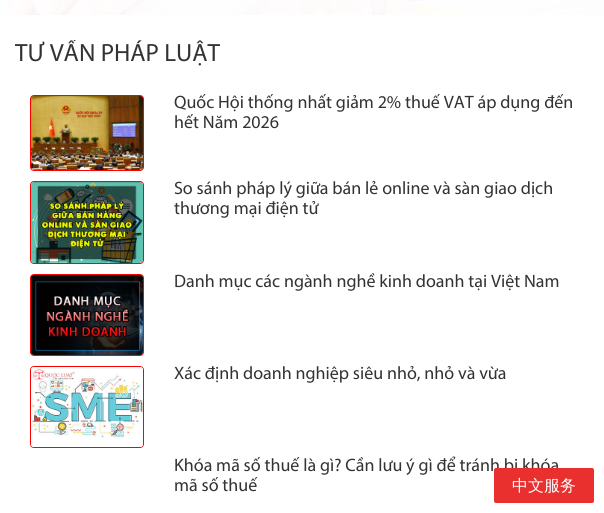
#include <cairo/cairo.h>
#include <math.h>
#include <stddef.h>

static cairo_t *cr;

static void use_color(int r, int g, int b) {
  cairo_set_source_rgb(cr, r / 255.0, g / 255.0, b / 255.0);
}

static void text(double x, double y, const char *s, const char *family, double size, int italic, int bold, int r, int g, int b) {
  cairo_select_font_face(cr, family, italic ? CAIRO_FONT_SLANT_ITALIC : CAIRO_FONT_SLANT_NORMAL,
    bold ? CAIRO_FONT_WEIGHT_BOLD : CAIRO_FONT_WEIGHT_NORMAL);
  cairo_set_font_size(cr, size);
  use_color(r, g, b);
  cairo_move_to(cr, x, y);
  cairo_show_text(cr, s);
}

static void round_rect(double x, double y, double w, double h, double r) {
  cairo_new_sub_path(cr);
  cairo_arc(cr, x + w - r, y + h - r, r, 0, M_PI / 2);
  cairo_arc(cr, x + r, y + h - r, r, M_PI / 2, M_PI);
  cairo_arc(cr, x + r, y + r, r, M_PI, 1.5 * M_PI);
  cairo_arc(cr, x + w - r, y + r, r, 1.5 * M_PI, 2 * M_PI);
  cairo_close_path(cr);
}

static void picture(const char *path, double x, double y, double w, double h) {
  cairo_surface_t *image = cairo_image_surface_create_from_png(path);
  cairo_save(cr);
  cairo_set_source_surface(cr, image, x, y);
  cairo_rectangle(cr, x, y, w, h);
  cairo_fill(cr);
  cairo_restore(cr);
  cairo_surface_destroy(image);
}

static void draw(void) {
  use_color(255, 255, 255);
  cairo_paint(cr);
  picture("img_01.png", 0, 0, 604, 15);
  round_rect(30.5, 95.5, 113, 75, 3.5);
  use_color(255, 0, 0);
  cairo_set_line_width(cr, 1);
  cairo_stroke(cr);
  picture("img_02.png", 31, 96, 112, 74);
  round_rect(30.5, 181.5, 113, 82, 3.5);
  cairo_stroke(cr);
  picture("img_03.png", 31, 182, 112, 81);
  round_rect(30.5, 274.5, 113, 81, 3.5);
  cairo_stroke(cr);
  picture("img_04.png", 31, 275, 112, 80);
  round_rect(30.5, 366.5, 113, 81, 3.5);
  cairo_stroke(cr);
  picture("img_05.png", 31, 367, 112, 80);
  cairo_save(cr);
  cairo_rectangle(cr, 15, 40, 574, 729);
  cairo_clip(cr);
  text(15, 61, "TƯ VẤN PHÁP LUẬT", "Myriad", 25, 0, 0, 51, 51, 51);
  cairo_restore(cr);
  text(174, 108, "Quốc Hội thống nhất giảm 2% thuế VAT áp dụng đến", "Myriad", 18, 0, 0, 51, 51, 51);
  text(174, 128, "hết Năm 2026", "Myriad", 18, 0, 0, 51, 51, 51);
  text(174, 194, "So sánh pháp lý giữa bán lẻ online và sàn giao dịch", "Myriad", 18, 0, 0, 51, 51, 51);
  text(174, 214, "thương mại điện tử", "Myriad", 18, 0, 0, 51, 51, 51);
  text(174, 287, "Danh mục các ngành nghề kinh doanh tại Việt Nam", "Myriad", 18, 0, 0, 51, 51, 51);
  text(174, 379, "Xác định doanh nghiệp siêu nhỏ, nhỏ và vừa", "Myriad", 18, 0, 0, 51, 51, 51);
  text(174, 471, "Khóa mã số thuế là gì? Cần lưu ý gì để tránh bị khóa", "Myriad", 18, 0, 0, 51, 51, 51);
  text(174, 491, "mã số thuế", "Myriad", 18, 0, 0, 51, 51, 51);
  use_color(234, 48, 46);
  round_rect(494, 468, 100, 35, 2);
  cairo_fill(cr);
  text(512, 491, "中文服务", "WenQuanYi Zen Hei Medium", 16, 0, 0, 255, 255, 255);
}

int main(void) {
  cairo_surface_t *surface = cairo_image_surface_create(CAIRO_FORMAT_RGB24, 604, 513);
  cr = cairo_create(surface);
  cairo_font_options_t *options = cairo_font_options_create();
  cairo_font_options_set_hint_metrics(options, CAIRO_HINT_METRICS_OFF);
  cairo_font_options_set_hint_style(options, CAIRO_HINT_STYLE_NONE);
  cairo_set_font_options(cr, options);
  cairo_set_miter_limit(cr, 4);
  draw();
  cairo_surface_write_to_png(surface, "out.png");
  cairo_font_options_destroy(options);
  cairo_destroy(cr);
  cairo_surface_destroy(surface);
  return 0;
}
